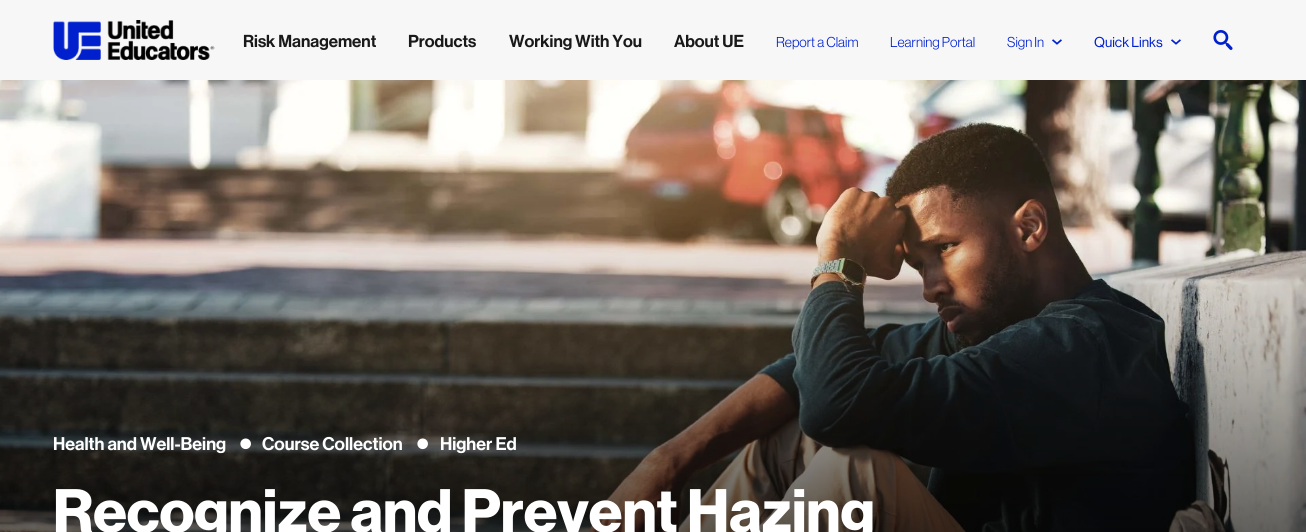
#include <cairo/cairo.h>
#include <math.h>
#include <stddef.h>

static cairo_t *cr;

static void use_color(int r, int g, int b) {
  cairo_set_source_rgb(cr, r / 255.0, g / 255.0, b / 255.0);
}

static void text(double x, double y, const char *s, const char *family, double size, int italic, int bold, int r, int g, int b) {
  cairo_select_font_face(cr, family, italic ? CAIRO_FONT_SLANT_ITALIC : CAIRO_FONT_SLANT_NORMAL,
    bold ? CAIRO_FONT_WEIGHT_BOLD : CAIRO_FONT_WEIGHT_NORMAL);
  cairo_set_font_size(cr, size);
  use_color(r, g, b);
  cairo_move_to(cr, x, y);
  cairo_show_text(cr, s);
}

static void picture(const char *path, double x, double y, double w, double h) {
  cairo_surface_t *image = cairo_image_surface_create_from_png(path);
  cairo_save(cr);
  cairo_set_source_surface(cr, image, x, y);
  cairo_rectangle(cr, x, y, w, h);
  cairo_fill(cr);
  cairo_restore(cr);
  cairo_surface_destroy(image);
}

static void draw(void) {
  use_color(247, 247, 247);
  cairo_paint(cr);
  picture("img_01.png", 53, 20, 162, 40);
  picture("img_02.png", 1052, 39, 10, 6);
  picture("img_02.png", 1171, 39, 10, 6);
  picture("img_03.png", 1213, 30, 20, 20);
  picture("img_04.png", 0, 80, 1306, 452);
  text(243, 47, "Risk Management", "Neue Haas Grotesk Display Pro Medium", 17, 0, 0, 25, 25, 25);
  text(408, 47, "Products", "Neue Haas Grotesk Display Pro Medium", 17, 0, 0, 25, 25, 25);
  text(509, 47, "Working With You", "Neue Haas Grotesk Display Pro Medium", 17, 0, 0, 25, 25, 25);
  text(674, 47, "About UE", "Neue Haas Grotesk Display Pro Medium", 17, 0, 0, 25, 25, 25);
  text(776, 47, "Report a Claim", "Neue Haas Grotesk Display Pro", 14, 0, 0, 0, 32, 205);
  text(890, 47, "Learning Portal", "Neue Haas Grotesk Display Pro", 14, 0, 0, 0, 32, 205);
  text(1007, 47, "Sign In", "Neue Haas Grotesk Display Pro", 14, 0, 0, 0, 32, 205);
  text(1094, 47, "Quick Links", "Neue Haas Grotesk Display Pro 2 Medium", 14, 0, 0, 0, 32, 205);
  text(53, 450, "Health and Well-Being", "Neue Haas Grotesk Display Pro Medium", 18, 0, 0, 255, 255, 255);
  text(239, 456, "•", "Neue Haas Grotesk Display Pro Medium", 38, 0, 0, 255, 255, 255);
  text(262, 450, "Course Collection", "Neue Haas Grotesk Display Pro Medium", 18, 0, 0, 255, 255, 255);
  text(416, 456, "•", "Neue Haas Grotesk Display Pro Medium", 38, 0, 0, 255, 255, 255);
  text(440, 450, "Higher Ed", "Neue Haas Grotesk Display Pro Medium", 18, 0, 0, 255, 255, 255);
  text(53, 532, "Recognize and Prevent Hazing", "Neue Haas Grotesk Display Pro", 60, 0, 1, 255, 255, 255);
}

int main(void) {
  cairo_surface_t *surface = cairo_image_surface_create(CAIRO_FORMAT_RGB24, 1306, 532);
  cr = cairo_create(surface);
  cairo_font_options_t *options = cairo_font_options_create();
  cairo_font_options_set_hint_metrics(options, CAIRO_HINT_METRICS_OFF);
  cairo_font_options_set_hint_style(options, CAIRO_HINT_STYLE_NONE);
  cairo_set_font_options(cr, options);
  cairo_set_miter_limit(cr, 4);
  draw();
  cairo_surface_write_to_png(surface, "out.png");
  cairo_font_options_destroy(options);
  cairo_destroy(cr);
  cairo_surface_destroy(surface);
  return 0;
}
